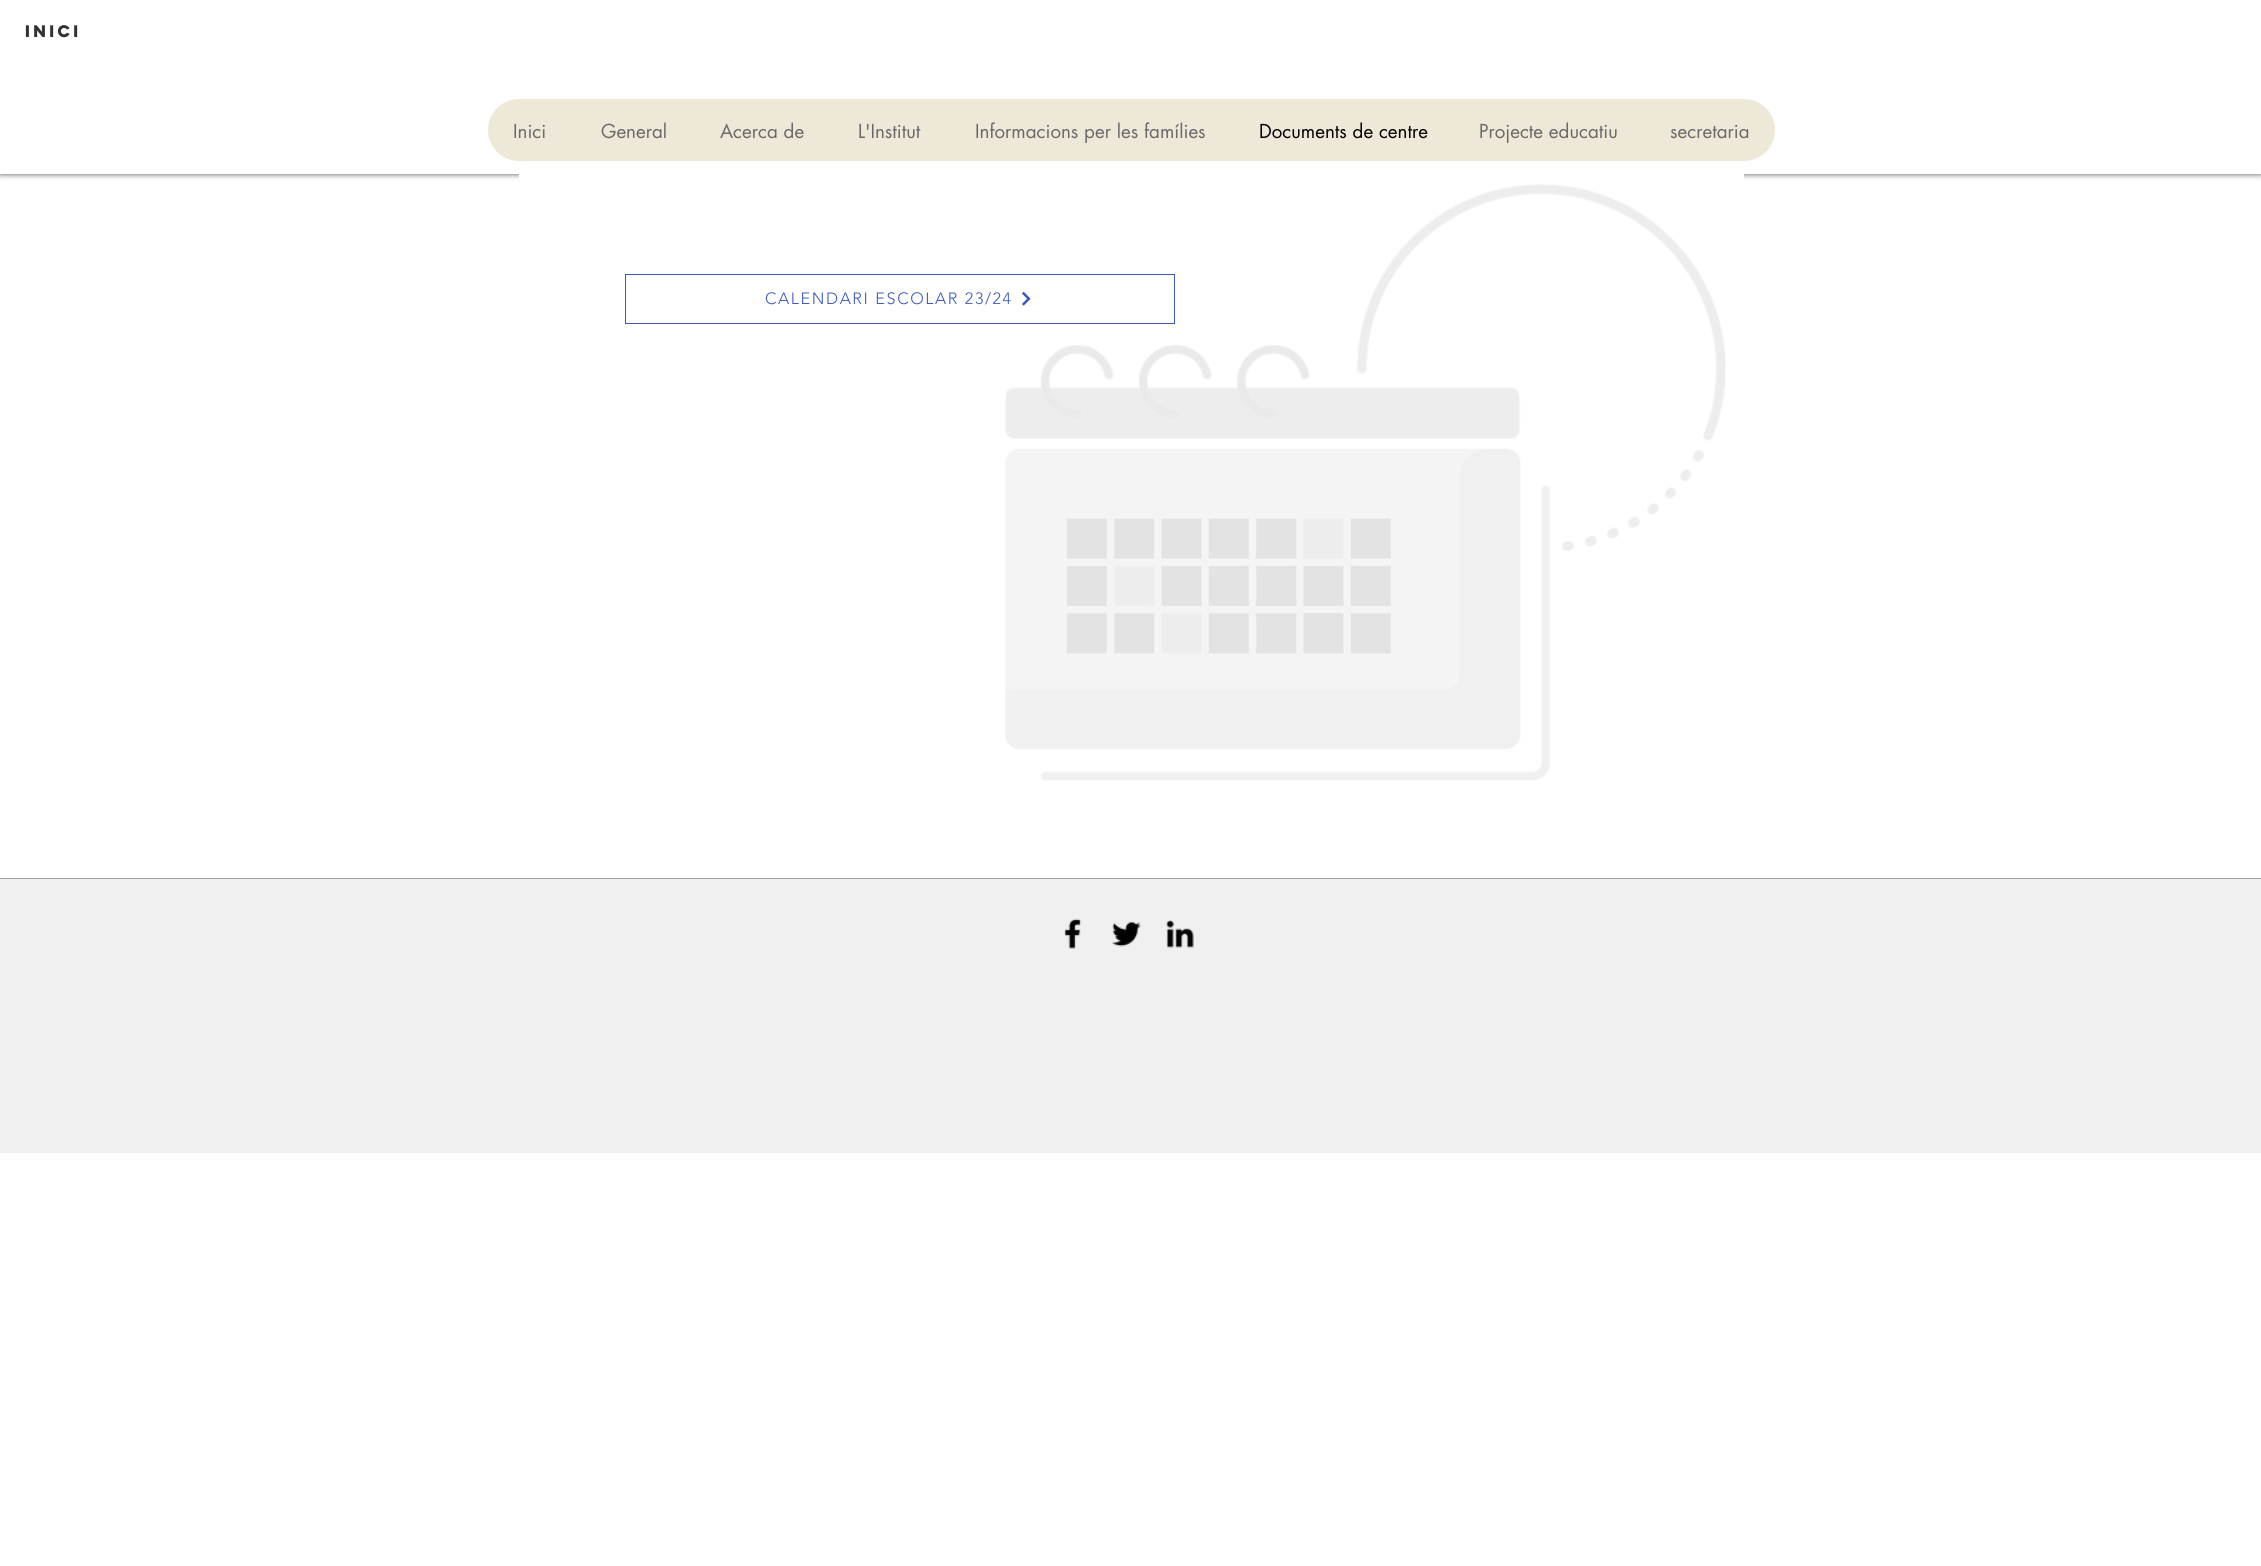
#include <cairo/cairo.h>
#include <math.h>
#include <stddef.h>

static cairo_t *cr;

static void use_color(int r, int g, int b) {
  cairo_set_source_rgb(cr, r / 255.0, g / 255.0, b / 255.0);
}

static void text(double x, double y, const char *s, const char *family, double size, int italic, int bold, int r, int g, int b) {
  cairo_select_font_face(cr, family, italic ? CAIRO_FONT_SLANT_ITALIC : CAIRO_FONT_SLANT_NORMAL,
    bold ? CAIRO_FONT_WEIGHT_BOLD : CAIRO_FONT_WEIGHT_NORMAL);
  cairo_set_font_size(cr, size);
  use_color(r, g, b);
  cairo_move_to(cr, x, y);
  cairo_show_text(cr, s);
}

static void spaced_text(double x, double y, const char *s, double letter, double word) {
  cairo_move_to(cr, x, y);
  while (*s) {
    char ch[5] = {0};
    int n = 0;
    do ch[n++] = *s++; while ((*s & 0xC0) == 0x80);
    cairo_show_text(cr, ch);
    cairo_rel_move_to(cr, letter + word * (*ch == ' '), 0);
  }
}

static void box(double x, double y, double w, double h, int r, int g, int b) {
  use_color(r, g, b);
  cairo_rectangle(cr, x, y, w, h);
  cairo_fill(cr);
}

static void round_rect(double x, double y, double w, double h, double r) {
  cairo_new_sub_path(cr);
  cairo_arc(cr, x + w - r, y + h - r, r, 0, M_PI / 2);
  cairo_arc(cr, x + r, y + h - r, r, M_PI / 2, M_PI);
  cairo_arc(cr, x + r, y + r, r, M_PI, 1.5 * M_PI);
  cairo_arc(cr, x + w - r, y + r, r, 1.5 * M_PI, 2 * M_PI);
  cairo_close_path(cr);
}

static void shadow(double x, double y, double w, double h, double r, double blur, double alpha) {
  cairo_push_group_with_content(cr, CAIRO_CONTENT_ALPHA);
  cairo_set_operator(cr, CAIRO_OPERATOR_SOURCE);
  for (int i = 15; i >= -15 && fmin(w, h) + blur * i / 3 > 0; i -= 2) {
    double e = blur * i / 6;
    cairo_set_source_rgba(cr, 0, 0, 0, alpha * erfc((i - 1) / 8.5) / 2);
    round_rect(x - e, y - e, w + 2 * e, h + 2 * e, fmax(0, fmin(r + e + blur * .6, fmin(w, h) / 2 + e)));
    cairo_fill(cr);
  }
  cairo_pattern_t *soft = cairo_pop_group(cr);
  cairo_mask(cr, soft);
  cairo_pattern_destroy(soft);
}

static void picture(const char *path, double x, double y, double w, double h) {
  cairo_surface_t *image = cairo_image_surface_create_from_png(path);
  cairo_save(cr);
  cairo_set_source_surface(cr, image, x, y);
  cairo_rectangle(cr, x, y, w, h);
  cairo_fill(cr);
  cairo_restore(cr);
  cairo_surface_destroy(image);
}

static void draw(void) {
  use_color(255, 255, 255);
  cairo_paint(cr);
  cairo_save(cr);
  cairo_set_fill_rule(cr, CAIRO_FILL_RULE_EVEN_ODD);
  cairo_new_path(cr);
  cairo_move_to(cr, 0, 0);
  cairo_line_to(cr, 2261, 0);
  cairo_line_to(cr, 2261, 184);
  cairo_line_to(cr, 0, 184);
  cairo_close_path(cr);
  cairo_move_to(cr, 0, 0);
  cairo_line_to(cr, 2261, 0);
  cairo_line_to(cr, 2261, 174);
  cairo_line_to(cr, 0, 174);
  cairo_close_path(cr);
  cairo_clip(cr);
  use_color(0, 0, 0);
  shadow(0, 0, 2261, 174, 0, 3, 0.7);
  cairo_restore(cr);
  cairo_set_source_rgba(cr, 1, 1, 1, 0.6);
  cairo_rectangle(cr, 0, 173, 2261, 1);
  cairo_fill(cr);
  use_color(238, 232, 216);
  round_rect(488, 99, 1287, 62, 31);
  cairo_fill(cr);
  box(519, 174, 1225, 7, 255, 255, 255);
  cairo_rectangle(cr, 625.5, 274.5, 549, 49);
  use_color(59, 88, 184);
  cairo_set_line_width(cr, 1);
  cairo_stroke(cr);
  picture("img_01.png", 1022, 291, 9, 15);
  box(0, 879, 2261, 274, 240, 240, 240);
  box(0, 878, 2261, 1, 160, 160, 159);
  picture("img_03.png", 1064, 918, 17, 31);
  picture("img_04.png", 1112, 921, 30, 26);
  picture("img_05.png", 1166, 920, 28, 28);
  text(25, 37, "inici", "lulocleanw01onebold", 15, 0, 1, 50, 50, 50);
  text(513, 138, "Inici", "futura", 18.75, 0, 0, 105, 105, 105);
  text(601, 138, "General", "futura", 18.75, 0, 0, 105, 105, 105);
  text(720, 138, "Acerca de", "futura", 18.75, 0, 0, 105, 105, 105);
  text(858, 138, "L'Institut", "futura", 18.75, 0, 0, 105, 105, 105);
  text(975, 138, "Informacions per les famílies", "futura", 18.75, 0, 0, 105, 105, 105);
  text(1259, 138, "Documents de centre", "futura", 18.75, 0, 0, 0, 0, 0);
  text(1479, 138, "Projecte educatiu", "futura", 18.75, 0, 0, 105, 105, 105);
  text(1670, 138, "secretaria", "futura", 18.75, 0, 0, 105, 105, 105);
  cairo_select_font_face(cr, "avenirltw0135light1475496 Light", CAIRO_FONT_SLANT_NORMAL, CAIRO_FONT_WEIGHT_NORMAL);
  cairo_set_font_size(cr, 16.25);
  use_color(59, 88, 184);
  spaced_text(765, 304, "CALENDARI ESCOLAR 23/24", 1.6, 0);
  picture("img_02.png", 1005, 184, 721, 597);
}

int main(void) {
  cairo_surface_t *surface = cairo_image_surface_create(CAIRO_FORMAT_RGB24, 2261, 1566);
  cr = cairo_create(surface);
  cairo_font_options_t *options = cairo_font_options_create();
  cairo_font_options_set_hint_metrics(options, CAIRO_HINT_METRICS_OFF);
  cairo_font_options_set_hint_style(options, CAIRO_HINT_STYLE_NONE);
  cairo_set_font_options(cr, options);
  cairo_set_miter_limit(cr, 4);
  draw();
  cairo_surface_write_to_png(surface, "out.png");
  cairo_font_options_destroy(options);
  cairo_destroy(cr);
  cairo_surface_destroy(surface);
  return 0;
}
